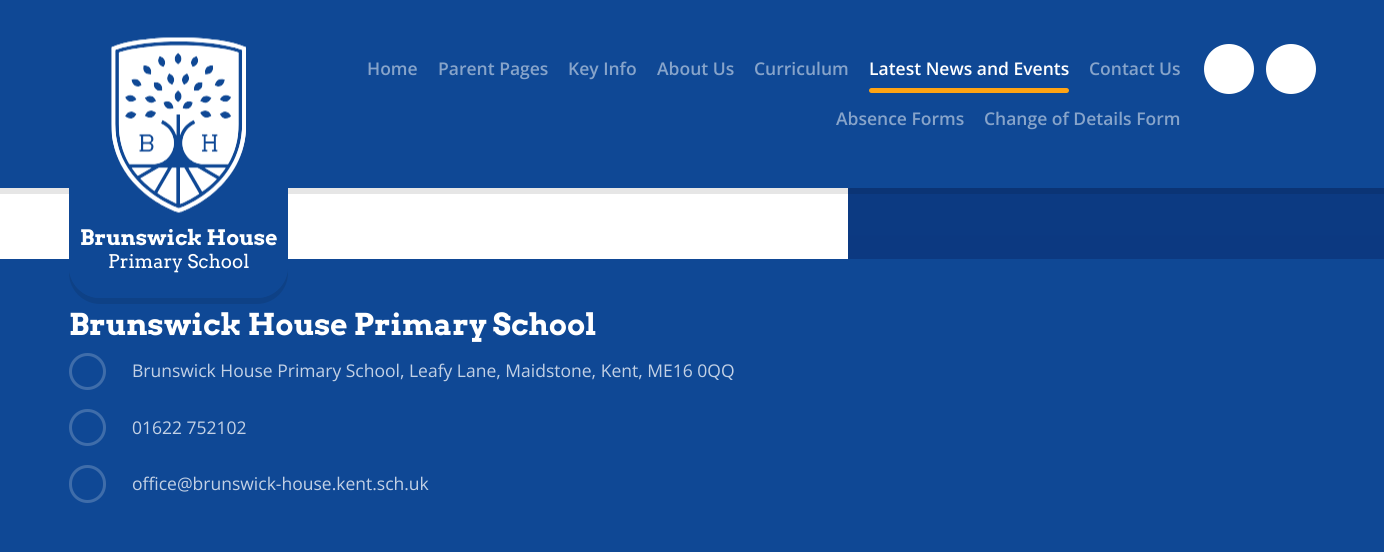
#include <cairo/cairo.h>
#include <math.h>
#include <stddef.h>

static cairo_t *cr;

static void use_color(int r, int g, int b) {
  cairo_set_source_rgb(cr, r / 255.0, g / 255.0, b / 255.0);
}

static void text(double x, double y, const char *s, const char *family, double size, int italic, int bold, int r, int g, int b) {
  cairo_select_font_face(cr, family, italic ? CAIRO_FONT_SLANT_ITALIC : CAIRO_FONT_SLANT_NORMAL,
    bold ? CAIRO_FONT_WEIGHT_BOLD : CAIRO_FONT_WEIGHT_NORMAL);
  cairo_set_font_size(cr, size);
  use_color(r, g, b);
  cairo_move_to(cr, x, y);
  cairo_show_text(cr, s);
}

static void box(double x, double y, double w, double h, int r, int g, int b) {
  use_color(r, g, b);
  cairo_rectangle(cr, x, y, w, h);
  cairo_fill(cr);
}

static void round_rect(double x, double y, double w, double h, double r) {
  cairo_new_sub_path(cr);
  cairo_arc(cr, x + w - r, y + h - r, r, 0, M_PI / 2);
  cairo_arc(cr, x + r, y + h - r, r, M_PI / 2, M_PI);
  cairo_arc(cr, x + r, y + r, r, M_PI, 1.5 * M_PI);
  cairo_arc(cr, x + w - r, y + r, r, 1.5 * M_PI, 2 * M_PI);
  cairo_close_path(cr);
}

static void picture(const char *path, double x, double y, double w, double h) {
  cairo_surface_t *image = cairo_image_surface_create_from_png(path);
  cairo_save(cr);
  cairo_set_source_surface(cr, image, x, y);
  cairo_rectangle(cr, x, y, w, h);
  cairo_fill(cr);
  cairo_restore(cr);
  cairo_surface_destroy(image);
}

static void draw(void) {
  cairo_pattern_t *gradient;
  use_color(255, 255, 255);
  cairo_paint(cr);
  box(0, 188, 848, 6, 230, 230, 230);
  box(0, 0, 1384, 188, 15, 72, 149);
  use_color(255, 164, 20);
  round_rect(869, 88, 200, 5, 2.5);
  cairo_fill(cr);
  use_color(255, 255, 255);
  cairo_arc(cr, 1229, 69, 25, 0, 2 * M_PI);
  cairo_fill(cr);
  cairo_arc(cr, 1291, 69, 25, 0, 2 * M_PI);
  cairo_fill(cr);
  box(0, 259, 1384, 293, 15, 72, 149);
  cairo_arc(cr, 131.5, 258.5, 62.5, 0, 2 * M_PI);
  cairo_fill(cr);
  use_color(14, 65, 134);
  cairo_new_path(cr);
  cairo_move_to(cr, 69, 270);
  cairo_line_to(cr, 69, 273);
  cairo_curve_to(cr, 69, 290, 83, 304, 100, 304);
  cairo_line_to(cr, 257, 304);
  cairo_curve_to(cr, 274, 304, 288, 290, 288, 273);
  cairo_line_to(cr, 288, 44);
  cairo_line_to(cr, 288, 266);
  cairo_curve_to(cr, 288, 284, 274, 298, 256, 298);
  cairo_line_to(cr, 100, 298);
  cairo_curve_to(cr, 84, 298, 71, 286, 69, 270);
  cairo_close_path(cr);
  cairo_fill(cr);
  use_color(15, 72, 149);
  cairo_new_path(cr);
  cairo_move_to(cr, 69, 38);
  cairo_line_to(cr, 288, 38);
  cairo_line_to(cr, 288, 267);
  cairo_curve_to(cr, 288, 284, 274, 298, 257, 298);
  cairo_line_to(cr, 100, 298);
  cairo_curve_to(cr, 83, 298, 69, 284, 69, 267);
  cairo_close_path(cr);
  cairo_fill(cr);
  picture("img_01.png", 111, 37, 135, 176);
  gradient = cairo_pattern_create_linear(1082, -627, 1082, 259);
  cairo_pattern_add_color_stop_rgba(gradient, 0, 0.059, 0.278, 0.576, 1);
  cairo_pattern_add_color_stop_rgba(gradient, 1, 0.047, 0.224, 0.506, 1);
  cairo_set_source(cr, gradient);
  cairo_pattern_destroy(gradient);
  cairo_rectangle(cr, 848, 194, 468, 65);
  cairo_fill(cr);
  gradient = cairo_pattern_create_linear(1082, -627, 1082, 259);
  cairo_pattern_add_color_stop_rgba(gradient, 0, 0.055, 0.251, 0.518, 1);
  cairo_pattern_add_color_stop_rgba(gradient, 1, 0.043, 0.2, 0.455, 1);
  cairo_set_source(cr, gradient);
  cairo_pattern_destroy(gradient);
  cairo_rectangle(cr, 848, 188, 468, 6);
  cairo_fill(cr);
  gradient = cairo_pattern_create_linear(1351, -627, 1351, 259);
  cairo_pattern_add_color_stop_rgba(gradient, 0, 0.059, 0.278, 0.576, 1);
  cairo_pattern_add_color_stop_rgba(gradient, 1, 0.047, 0.224, 0.506, 1);
  cairo_set_source(cr, gradient);
  cairo_pattern_destroy(gradient);
  cairo_rectangle(cr, 1316, 194, 68, 65);
  cairo_fill(cr);
  gradient = cairo_pattern_create_linear(1351, -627, 1351, 259);
  cairo_pattern_add_color_stop_rgba(gradient, 0, 0.055, 0.251, 0.518, 1);
  cairo_pattern_add_color_stop_rgba(gradient, 1, 0.043, 0.2, 0.455, 1);
  cairo_set_source(cr, gradient);
  cairo_pattern_destroy(gradient);
  cairo_rectangle(cr, 1316, 188, 68, 6);
  cairo_fill(cr);
  cairo_arc(cr, 87.5, 371.5, 17, 0, 2 * M_PI);
  use_color(63, 109, 170);
  cairo_set_line_width(cr, 3);
  cairo_stroke(cr);
  cairo_arc(cr, 87.5, 427.5, 17, 0, 2 * M_PI);
  cairo_stroke(cr);
  round_rect(70.5, 466.5, 34, 35, 17);
  cairo_stroke(cr);
  text(367, 75, "Home", "Open Sans SemiBold", 17.5, 0, 0, 135, 164, 202);
  text(438, 75, "Parent Pages", "Open Sans SemiBold", 17.5, 0, 0, 135, 164, 202);
  text(568, 75, "Key Info", "Open Sans SemiBold", 17.5, 0, 0, 135, 164, 202);
  text(657, 75, "About Us", "Open Sans SemiBold", 17.5, 0, 0, 135, 164, 202);
  text(754, 75, "Curriculum", "Open Sans SemiBold", 17.5, 0, 0, 135, 164, 202);
  text(869, 75, "Latest News and Events", "Open Sans SemiBold", 17.5, 0, 0, 255, 255, 255);
  text(1089, 75, "Contact Us", "Open Sans SemiBold", 17.5, 0, 0, 135, 164, 202);
  text(836, 125, "Absence Forms", "Open Sans SemiBold", 17.5, 0, 0, 135, 164, 202);
  text(984, 125, "Change of Details Form", "Open Sans SemiBold", 17.5, 0, 0, 135, 164, 202);
  text(80, 245, "Brunswick House", "Arvo", 21.25, 0, 1, 255, 255, 255);
  text(108, 268, "Primary School", "Arvo", 18.75, 0, 0, 255, 255, 255);
  text(69, 335, "Brunswick House Primary School", "Arvo", 30, 0, 1, 255, 255, 255);
  text(132, 377, "Brunswick House Primary School, Leafy Lane, Maidstone, Kent, ME16 0QQ", "Open Sans", 17.5, 0, 0, 195, 209, 229);
  text(132, 434, "01622 752102", "Open Sans", 17.5, 0, 0, 195, 209, 229);
  text(132, 490, "office@brunswick-house.kent.sch.uk", "Open Sans", 17.5, 0, 0, 195, 209, 229);
}

int main(void) {
  cairo_surface_t *surface = cairo_image_surface_create(CAIRO_FORMAT_RGB24, 1384, 552);
  cr = cairo_create(surface);
  cairo_font_options_t *options = cairo_font_options_create();
  cairo_font_options_set_hint_metrics(options, CAIRO_HINT_METRICS_OFF);
  cairo_font_options_set_hint_style(options, CAIRO_HINT_STYLE_NONE);
  cairo_set_font_options(cr, options);
  cairo_set_miter_limit(cr, 4);
  draw();
  cairo_surface_write_to_png(surface, "out.png");
  cairo_font_options_destroy(options);
  cairo_destroy(cr);
  cairo_surface_destroy(surface);
  return 0;
}
